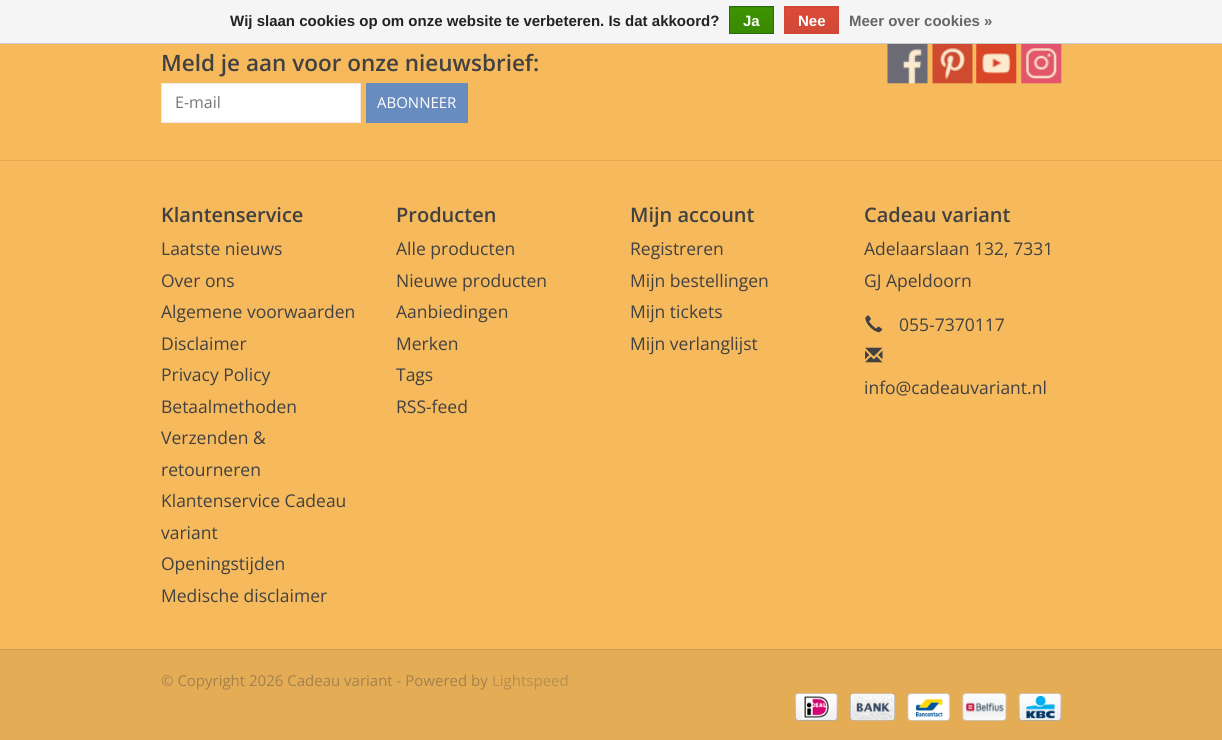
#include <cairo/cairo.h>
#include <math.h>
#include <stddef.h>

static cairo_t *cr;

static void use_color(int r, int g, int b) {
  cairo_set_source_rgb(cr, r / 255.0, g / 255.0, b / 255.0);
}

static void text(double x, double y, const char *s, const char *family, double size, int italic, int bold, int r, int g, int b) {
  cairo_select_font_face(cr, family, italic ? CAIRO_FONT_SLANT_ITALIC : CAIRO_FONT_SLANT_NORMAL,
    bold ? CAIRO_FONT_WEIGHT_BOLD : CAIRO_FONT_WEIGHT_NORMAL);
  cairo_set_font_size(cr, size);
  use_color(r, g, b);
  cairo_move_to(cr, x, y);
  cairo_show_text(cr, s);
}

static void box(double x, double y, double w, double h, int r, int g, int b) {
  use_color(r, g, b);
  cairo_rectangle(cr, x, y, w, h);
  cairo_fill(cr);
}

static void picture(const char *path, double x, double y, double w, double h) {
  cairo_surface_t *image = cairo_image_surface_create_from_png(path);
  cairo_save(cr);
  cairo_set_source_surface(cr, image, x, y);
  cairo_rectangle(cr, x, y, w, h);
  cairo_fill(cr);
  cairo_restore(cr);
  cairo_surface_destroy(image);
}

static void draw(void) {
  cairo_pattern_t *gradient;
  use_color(246, 185, 92);
  cairo_paint(cr);
  box(0, 0, 1222, 43, 245, 245, 245);
  box(0, 43, 1222, 1, 204, 204, 204);
  gradient = cairo_pattern_create_linear(751, -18, 751, 7.5);
  cairo_pattern_add_color_stop_rgba(gradient, 0, 0.235, 0.576, 0, 1);
  cairo_pattern_add_color_stop_rgba(gradient, 1, 0.224, 0.541, 0, 1);
  cairo_set_source(cr, gradient);
  cairo_pattern_destroy(gradient);
  cairo_rectangle(cr, 729, 7, 45, 1);
  cairo_fill(cr);
  gradient = cairo_pattern_create_linear(751, 7.5, 751, 33);
  cairo_pattern_add_color_stop_rgba(gradient, 0, 0.235, 0.576, 0, 1);
  cairo_pattern_add_color_stop_rgba(gradient, 1, 0.224, 0.541, 0, 1);
  cairo_set_source(cr, gradient);
  cairo_pattern_destroy(gradient);
  cairo_rectangle(cr, 730, 8, 43, 25);
  cairo_fill(cr);
  cairo_rectangle(cr, 729.5, 6.5, 44, 27);
  use_color(41, 105, 29);
  cairo_set_line_width(cr, 1);
  cairo_stroke(cr);
  gradient = cairo_pattern_create_linear(811, -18, 811, 7.5);
  cairo_pattern_add_color_stop_rgba(gradient, 0, 0.863, 0.29, 0.22, 1);
  cairo_pattern_add_color_stop_rgba(gradient, 1, 0.82, 0.282, 0.212, 1);
  cairo_set_source(cr, gradient);
  cairo_pattern_destroy(gradient);
  cairo_rectangle(cr, 784, 7, 55, 1);
  cairo_fill(cr);
  gradient = cairo_pattern_create_linear(811, 7.5, 811, 33);
  cairo_pattern_add_color_stop_rgba(gradient, 0, 0.863, 0.29, 0.22, 1);
  cairo_pattern_add_color_stop_rgba(gradient, 1, 0.82, 0.282, 0.212, 1);
  cairo_set_source(cr, gradient);
  cairo_pattern_destroy(gradient);
  cairo_rectangle(cr, 785, 8, 53, 25);
  cairo_fill(cr);
  cairo_rectangle(cr, 784.5, 6.5, 54, 27);
  use_color(209, 72, 54);
  cairo_stroke(cr);
  use_color(255, 255, 255);
  cairo_rectangle(cr, 161.5, 83.5, 199, 39);
  cairo_fill_preserve(cr);
  use_color(233, 233, 233);
  cairo_stroke(cr);
  box(366, 83, 102, 40, 105, 140, 192);
  picture("img_01.png", 887, 44, 41, 40);
  picture("img_02.png", 932, 44, 41, 40);
  picture("img_03.png", 976, 44, 41, 40);
  picture("img_04.png", 1021, 44, 41, 40);
  box(0, 160, 1222, 1, 225, 169, 84);
  picture("img_05.png", 865, 315, 18, 18);
  picture("img_06.png", 865, 347, 18, 16);
  box(0, 649, 1222, 1, 209, 157, 78);
  box(0, 650, 1222, 90, 228, 172, 85);
  picture("img_07.png", 795, 693, 43, 28);
  picture("img_08.png", 850, 693, 45, 28);
  picture("img_09.png", 907, 693, 43, 28);
  picture("img_10.png", 962, 693, 45, 28);
  picture("img_11.png", 1018, 693, 44, 28);
  text(230, 26, "Wij slaan cookies op om onze website te verbeteren. Is dat akkoord?", "Liberation Sans", 15, 0, 1, 34, 34, 34);
  text(743, 26, "Ja", "Liberation Sans", 15, 0, 1, 255, 255, 255);
  text(798, 26, "Nee", "Liberation Sans", 15, 0, 1, 255, 255, 255);
  text(849, 26, "Meer over cookies »", "Liberation Sans", 15, 0, 1, 102, 102, 102);
  text(161, 71, "Meld je aan voor onze nieuwsbrief:", "Open Sans SemiBold", 22.5, 0, 0, 65, 65, 65);
  text(175, 108, "E-mail", "Open Sans", 16, 0, 0, 117, 117, 117);
  text(377, 108, "ABONNEER", "Open Sans", 15, 0, 0, 255, 255, 255);
  text(161, 222, "Klantenservice", "Open Sans SemiBold", 20, 0, 0, 65, 65, 65);
  text(161, 255, "Laatste nieuws", "Open Sans", 17.5, 0, 0, 65, 65, 65);
  text(161, 287, "Over ons", "Open Sans", 17.5, 0, 0, 65, 65, 65);
  text(161, 318, "Algemene voorwaarden", "Open Sans", 17.5, 0, 0, 65, 65, 65);
  text(161, 350, "Disclaimer", "Open Sans", 17.5, 0, 0, 65, 65, 65);
  text(161, 381, "Privacy Policy", "Open Sans", 17.5, 0, 0, 65, 65, 65);
  text(161, 413, "Betaalmethoden", "Open Sans", 17.5, 0, 0, 65, 65, 65);
  text(161, 444, "Verzenden &", "Open Sans", 17.5, 0, 0, 65, 65, 65);
  text(161, 476, "retourneren", "Open Sans", 17.5, 0, 0, 65, 65, 65);
  text(161, 507, "Klantenservice Cadeau", "Open Sans", 17.5, 0, 0, 65, 65, 65);
  text(161, 539, "variant", "Open Sans", 17.5, 0, 0, 65, 65, 65);
  text(161, 570, "Openingstijden", "Open Sans", 17.5, 0, 0, 65, 65, 65);
  text(161, 602, "Medische disclaimer", "Open Sans", 17.5, 0, 0, 65, 65, 65);
  text(396, 222, "Producten", "Open Sans SemiBold", 20, 0, 0, 65, 65, 65);
  text(396, 255, "Alle producten", "Open Sans", 17.5, 0, 0, 65, 65, 65);
  text(396, 287, "Nieuwe producten", "Open Sans", 17.5, 0, 0, 65, 65, 65);
  text(396, 318, "Aanbiedingen", "Open Sans", 17.5, 0, 0, 65, 65, 65);
  text(396, 350, "Merken", "Open Sans", 17.5, 0, 0, 65, 65, 65);
  text(396, 381, "Tags", "Open Sans", 17.5, 0, 0, 65, 65, 65);
  text(396, 413, "RSS-feed", "Open Sans", 17.5, 0, 0, 65, 65, 65);
  text(630, 222, "Mijn account", "Open Sans SemiBold", 20, 0, 0, 65, 65, 65);
  text(630, 255, "Registreren", "Open Sans", 17.5, 0, 0, 65, 65, 65);
  text(630, 287, "Mijn bestellingen", "Open Sans", 17.5, 0, 0, 65, 65, 65);
  text(630, 318, "Mijn tickets", "Open Sans", 17.5, 0, 0, 65, 65, 65);
  text(630, 350, "Mijn verlanglijst", "Open Sans", 17.5, 0, 0, 65, 65, 65);
  text(864, 222, "Cadeau variant", "Open Sans SemiBold", 20, 0, 0, 65, 65, 65);
  text(864, 255, "Adelaarslaan 132, 7331", "Open Sans", 17.5, 0, 0, 65, 65, 65);
  text(864, 287, "GJ Apeldoorn", "Open Sans", 17.5, 0, 0, 65, 65, 65);
  text(899, 331, "055-7370117", "Open Sans", 17.5, 0, 0, 65, 65, 65);
  text(864, 394, "info@cadeauvariant.nl", "Open Sans", 17.5, 0, 0, 65, 65, 65);
  text(161, 686, "© Copyright 2026 Cadeau variant - Powered by", "Open Sans", 15, 0, 0, 163, 129, 77);
  text(492, 686, "Lightspeed", "Open Sans", 15, 0, 0, 182, 142, 79);
}

int main(void) {
  cairo_surface_t *surface = cairo_image_surface_create(CAIRO_FORMAT_RGB24, 1222, 740);
  cr = cairo_create(surface);
  cairo_font_options_t *options = cairo_font_options_create();
  cairo_font_options_set_hint_metrics(options, CAIRO_HINT_METRICS_OFF);
  cairo_font_options_set_hint_style(options, CAIRO_HINT_STYLE_NONE);
  cairo_set_font_options(cr, options);
  cairo_set_miter_limit(cr, 4);
  draw();
  cairo_surface_write_to_png(surface, "out.png");
  cairo_font_options_destroy(options);
  cairo_destroy(cr);
  cairo_surface_destroy(surface);
  return 0;
}
